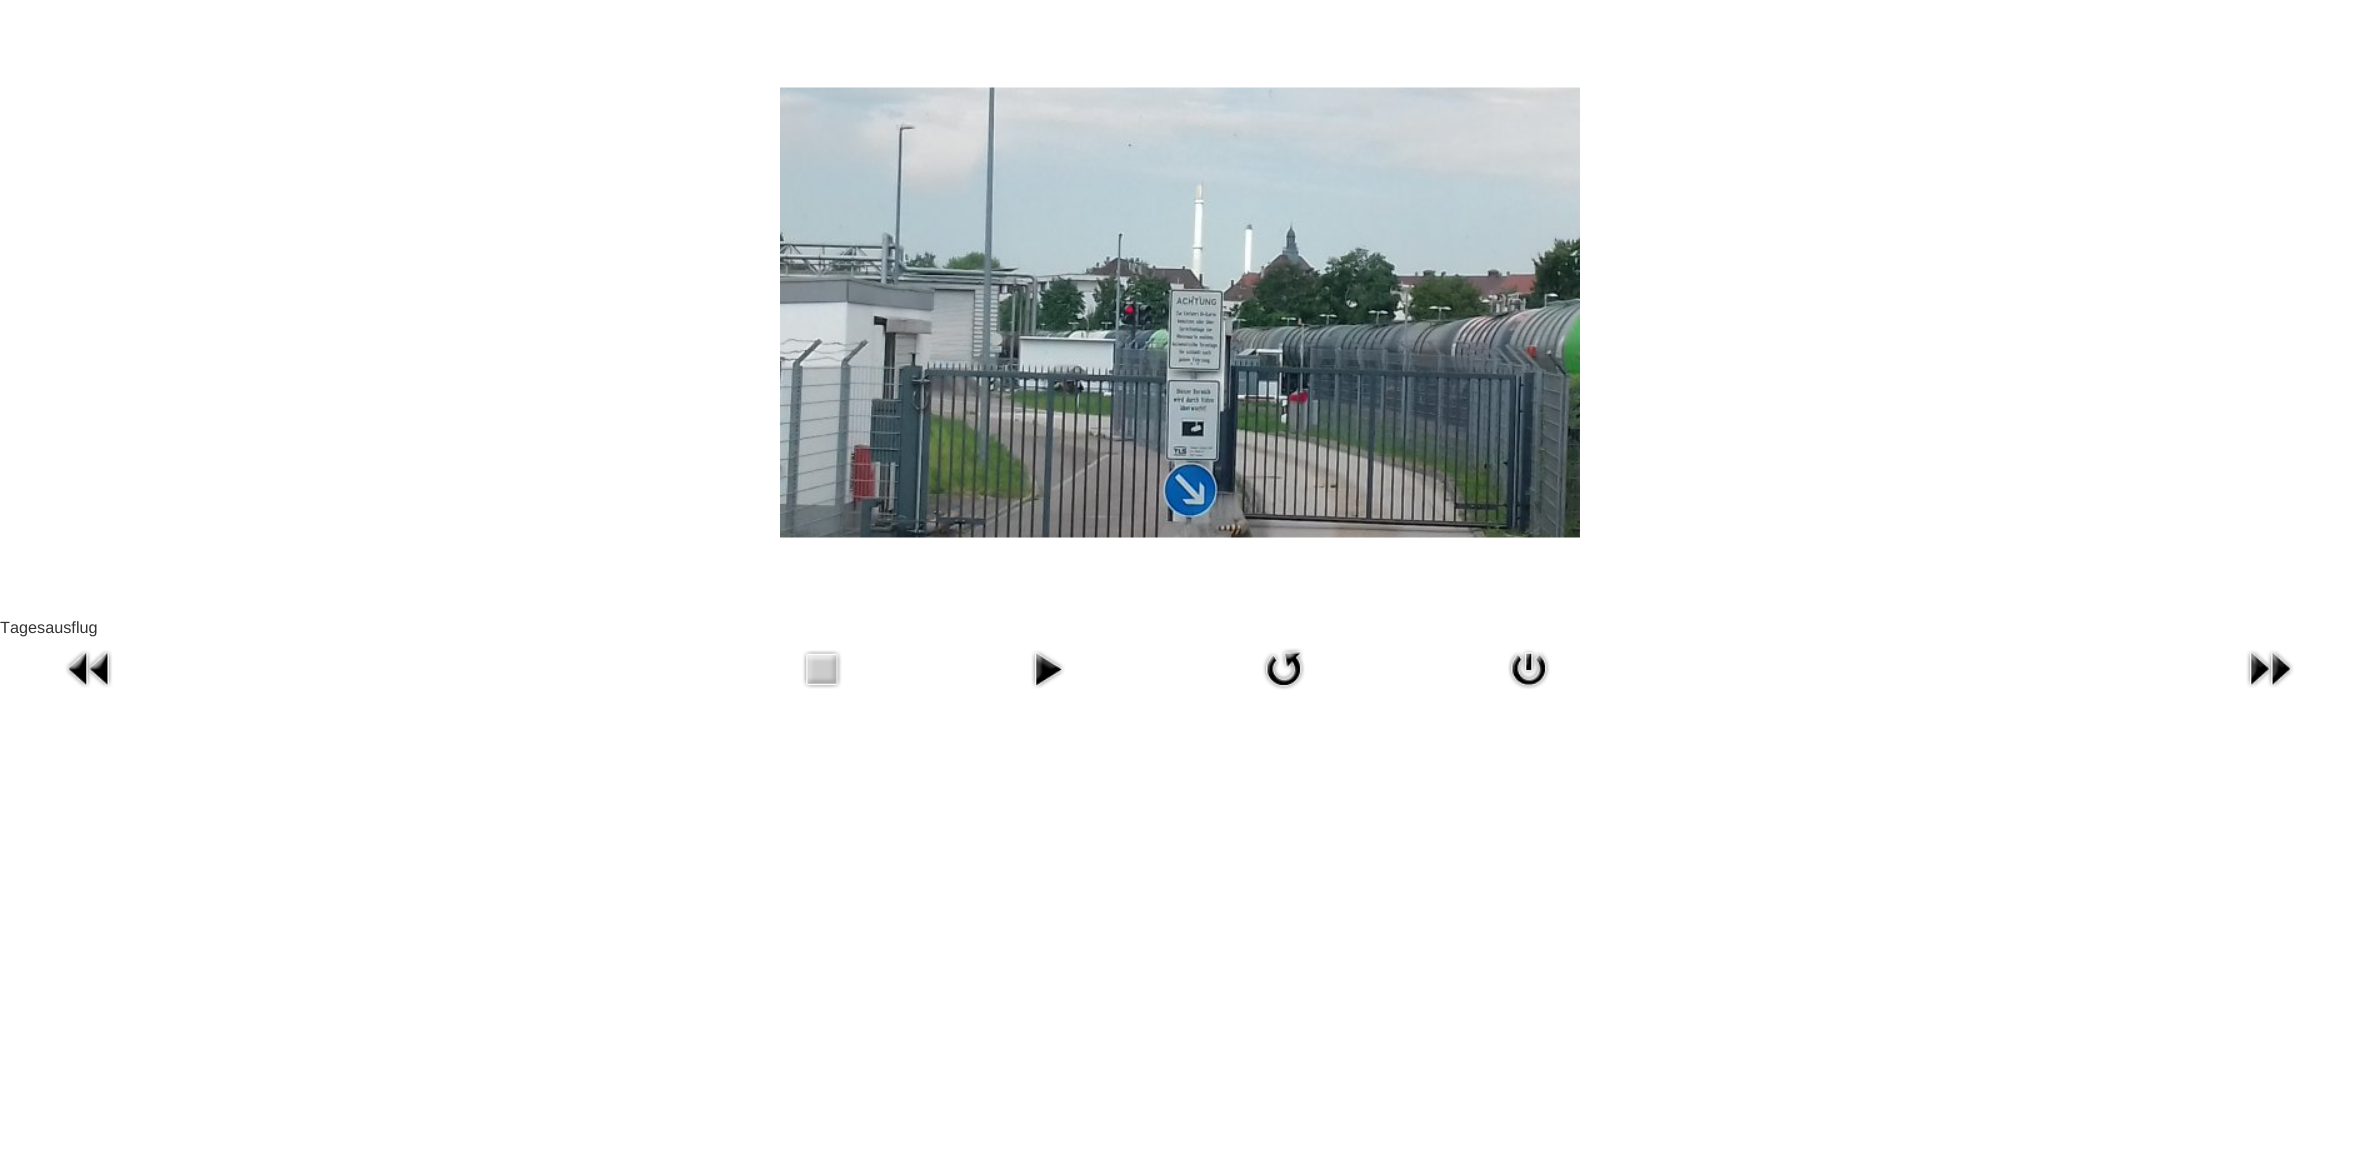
#include <cairo/cairo.h>
#include <math.h>
#include <stddef.h>

static cairo_t *cr;

static void use_color(int r, int g, int b) {
  cairo_set_source_rgb(cr, r / 255.0, g / 255.0, b / 255.0);
}

static void text(double x, double y, const char *s, const char *family, double size, int italic, int bold, int r, int g, int b) {
  cairo_select_font_face(cr, family, italic ? CAIRO_FONT_SLANT_ITALIC : CAIRO_FONT_SLANT_NORMAL,
    bold ? CAIRO_FONT_WEIGHT_BOLD : CAIRO_FONT_WEIGHT_NORMAL);
  cairo_set_font_size(cr, size);
  use_color(r, g, b);
  cairo_move_to(cr, x, y);
  cairo_show_text(cr, s);
}

static void picture(const char *path, double x, double y, double w, double h) {
  cairo_surface_t *image = cairo_image_surface_create_from_png(path);
  cairo_save(cr);
  cairo_set_source_surface(cr, image, x, y);
  cairo_rectangle(cr, x, y, w, h);
  cairo_fill(cr);
  cairo_restore(cr);
  cairo_surface_destroy(image);
}

static void draw(void) {
  use_color(255, 255, 255);
  cairo_paint(cr);
  picture("img_01.png", 780, 87, 800, 451);
  picture("img_02.png", 65, 650, 48, 38);
  picture("img_03.png", 802, 650, 40, 39);
  picture("img_04.png", 1031, 650, 34, 39);
  picture("img_05.png", 1262, 648, 43, 42);
  picture("img_06.png", 1508, 649, 42, 40);
  picture("img_07.png", 2246, 650, 48, 38);
  text(0, 633, "Tagesausflug", "Liberation Sans", 16.25, 0, 0, 51, 51, 51);
}

int main(void) {
  cairo_surface_t *surface = cairo_image_surface_create(CAIRO_FORMAT_RGB24, 2360, 1165);
  cr = cairo_create(surface);
  cairo_font_options_t *options = cairo_font_options_create();
  cairo_font_options_set_hint_metrics(options, CAIRO_HINT_METRICS_OFF);
  cairo_font_options_set_hint_style(options, CAIRO_HINT_STYLE_NONE);
  cairo_set_font_options(cr, options);
  cairo_set_miter_limit(cr, 4);
  draw();
  cairo_surface_write_to_png(surface, "out.png");
  cairo_font_options_destroy(options);
  cairo_destroy(cr);
  cairo_surface_destroy(surface);
  return 0;
}
